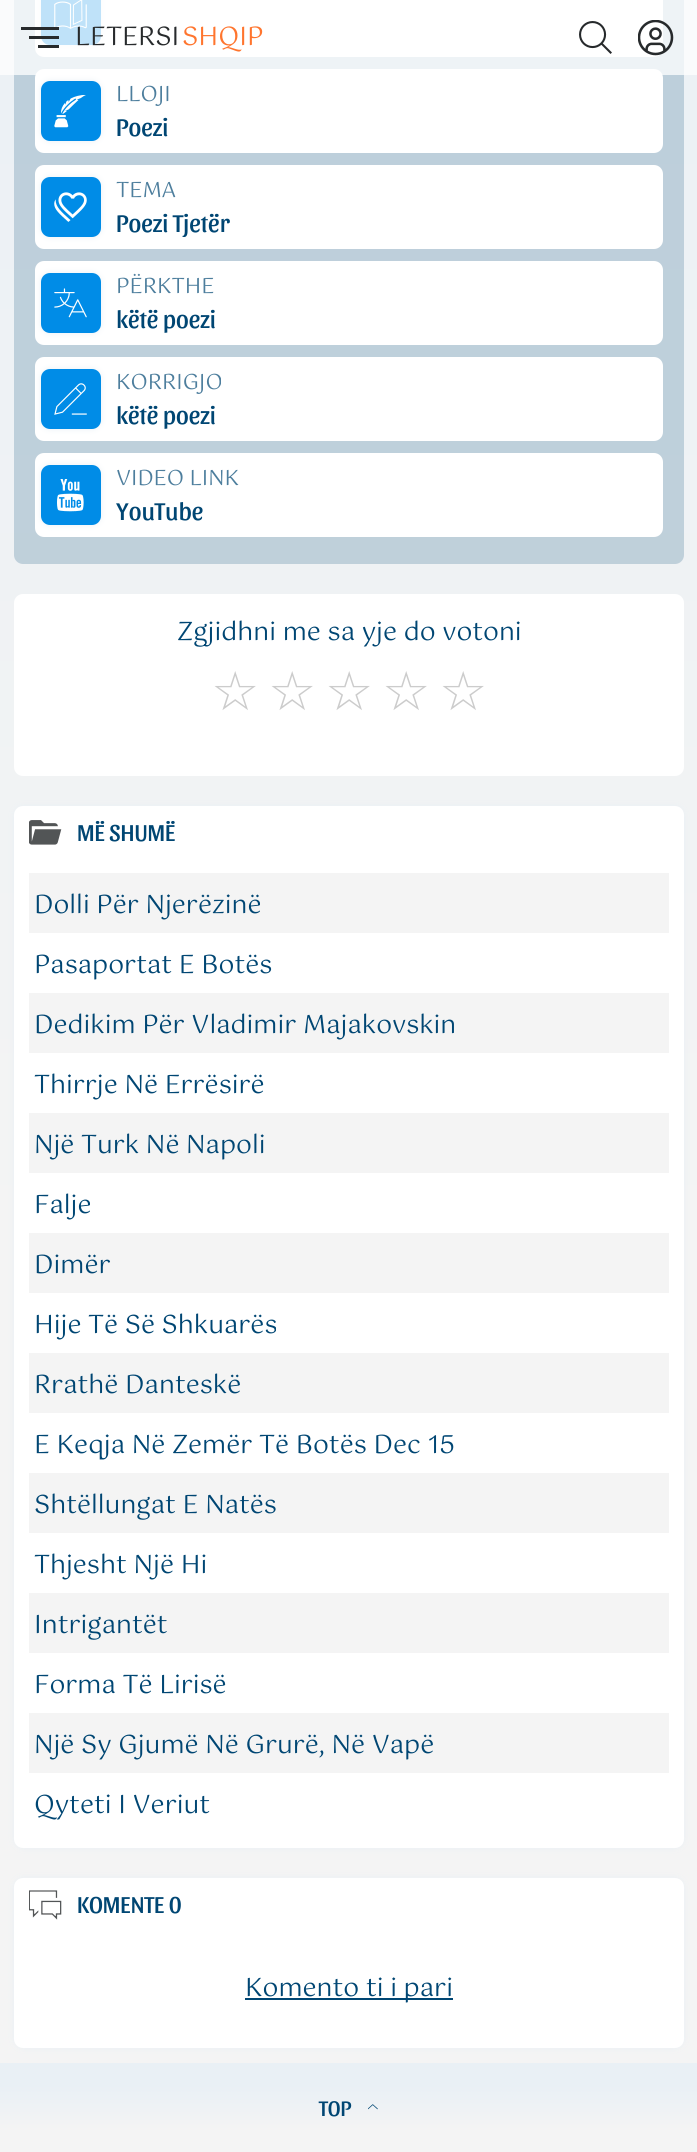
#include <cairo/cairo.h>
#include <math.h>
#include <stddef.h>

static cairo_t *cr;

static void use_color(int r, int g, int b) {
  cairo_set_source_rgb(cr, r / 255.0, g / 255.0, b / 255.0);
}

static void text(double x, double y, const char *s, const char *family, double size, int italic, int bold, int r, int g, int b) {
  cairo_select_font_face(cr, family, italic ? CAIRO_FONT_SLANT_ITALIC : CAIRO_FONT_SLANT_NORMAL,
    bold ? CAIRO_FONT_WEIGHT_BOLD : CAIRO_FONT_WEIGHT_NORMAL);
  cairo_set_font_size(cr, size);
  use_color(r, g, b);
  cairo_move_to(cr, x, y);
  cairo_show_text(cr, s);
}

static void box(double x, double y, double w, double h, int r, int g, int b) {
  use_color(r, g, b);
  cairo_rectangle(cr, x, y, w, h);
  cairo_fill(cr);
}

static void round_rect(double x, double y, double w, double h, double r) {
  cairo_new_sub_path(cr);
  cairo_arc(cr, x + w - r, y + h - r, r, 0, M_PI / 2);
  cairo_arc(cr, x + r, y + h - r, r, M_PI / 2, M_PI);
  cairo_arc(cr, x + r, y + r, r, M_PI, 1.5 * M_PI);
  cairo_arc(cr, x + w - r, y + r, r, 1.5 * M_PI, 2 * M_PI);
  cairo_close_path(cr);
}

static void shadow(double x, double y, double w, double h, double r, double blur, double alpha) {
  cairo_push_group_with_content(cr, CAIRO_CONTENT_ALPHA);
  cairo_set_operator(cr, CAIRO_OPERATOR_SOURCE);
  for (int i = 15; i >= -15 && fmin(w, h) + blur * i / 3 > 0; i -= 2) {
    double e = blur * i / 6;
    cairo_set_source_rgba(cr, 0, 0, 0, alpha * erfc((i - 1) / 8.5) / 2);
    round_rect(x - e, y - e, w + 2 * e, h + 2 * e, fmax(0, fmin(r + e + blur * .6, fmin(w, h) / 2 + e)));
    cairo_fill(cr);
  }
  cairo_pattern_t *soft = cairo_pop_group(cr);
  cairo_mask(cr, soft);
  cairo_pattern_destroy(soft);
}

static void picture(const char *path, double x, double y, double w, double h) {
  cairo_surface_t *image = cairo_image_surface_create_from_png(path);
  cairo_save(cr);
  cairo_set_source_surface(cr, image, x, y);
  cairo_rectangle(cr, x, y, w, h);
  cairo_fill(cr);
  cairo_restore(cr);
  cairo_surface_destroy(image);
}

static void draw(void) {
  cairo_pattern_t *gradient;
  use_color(255, 255, 255);
  cairo_paint(cr);
  gradient = cairo_pattern_create_linear(349, -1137, 349, 2063);
  cairo_pattern_add_color_stop_rgba(gradient, 0.25, 0.914, 0.941, 0.961, 1);
  cairo_pattern_add_color_stop_rgba(gradient, 0.75, 0.957, 0.957, 0.957, 1);
  cairo_pattern_add_color_stop_rgba(gradient, 1, 0.957, 0.957, 0.957, 1);
  cairo_set_source(cr, gradient);
  cairo_pattern_destroy(gradient);
  cairo_rectangle(cr, 0, 0, 697, 2063);
  cairo_fill(cr);
  cairo_set_source_rgba(cr, 0, 0.275, 0.451, 0.2);
  round_rect(14, -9, 670, 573, 9);
  cairo_fill(cr);
  use_color(255, 255, 255);
  round_rect(35, -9, 628, 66, 9);
  cairo_fill(cr);
  use_color(233, 240, 245);
  shadow(41, -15, 60, 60, 9, 3, 1);
  use_color(0, 140, 231);
  round_rect(42, -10, 58, 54, 8);
  cairo_fill_preserve(cr);
  cairo_stroke(cr);
  picture("img_03.png", 54, 0, 33, 29);
  use_color(255, 255, 255);
  round_rect(35, 69, 628, 84, 9);
  cairo_fill(cr);
  use_color(233, 240, 245);
  shadow(41, 81, 60, 60, 9, 3, 1);
  cairo_set_source_rgba(cr, 1, 1, 1, 0.75);
  cairo_rectangle(cr, 0, 0, 697, 75);
  cairo_fill(cr);
  box(21, 27, 38, 3, 39, 42, 44);
  box(29, 36, 30, 3, 39, 42, 44);
  box(38, 45, 21, 3, 39, 42, 44);
  picture("img_01.png", 579, 21, 33, 33);
  picture("img_02.png", 638, 20, 36, 36);
  use_color(0, 140, 231);
  round_rect(42, 82, 58, 58, 8);
  cairo_fill_preserve(cr);
  cairo_stroke(cr);
  picture("img_04.png", 54, 95, 32, 33);
  use_color(255, 255, 255);
  round_rect(35, 165, 628, 84, 9);
  cairo_fill(cr);
  use_color(233, 240, 245);
  shadow(41, 177, 60, 60, 9, 3, 1);
  use_color(0, 140, 231);
  round_rect(42, 178, 58, 58, 8);
  cairo_fill_preserve(cr);
  cairo_stroke(cr);
  picture("img_05.png", 54, 192, 33, 30);
  use_color(255, 255, 255);
  round_rect(35, 261, 628, 84, 9);
  cairo_fill(cr);
  use_color(233, 240, 245);
  shadow(41, 273, 60, 60, 9, 3, 1);
  use_color(0, 140, 231);
  round_rect(42, 274, 58, 58, 8);
  cairo_fill_preserve(cr);
  cairo_stroke(cr);
  picture("img_06.png", 54, 288, 33, 30);
  use_color(255, 255, 255);
  round_rect(35, 357, 628, 84, 9);
  cairo_fill(cr);
  use_color(233, 240, 245);
  shadow(41, 369, 60, 60, 9, 3, 1);
  use_color(0, 140, 231);
  round_rect(42, 370, 58, 58, 8);
  cairo_fill_preserve(cr);
  cairo_stroke(cr);
  picture("img_07.png", 54, 383, 33, 32);
  use_color(255, 255, 255);
  round_rect(35, 453, 628, 84, 9);
  cairo_fill(cr);
  use_color(233, 240, 245);
  shadow(41, 465, 60, 60, 9, 3, 1);
  use_color(0, 140, 231);
  round_rect(42, 466, 58, 58, 8);
  cairo_fill_preserve(cr);
  cairo_stroke(cr);
  picture("img_08.png", 57, 479, 27, 33);
  use_color(255, 255, 255);
  round_rect(14, 594, 670, 182, 9);
  cairo_fill(cr);
  use_color(233, 240, 245);
  shadow(14, 806, 670, 1042, 9, 3, 1);
  use_color(255, 255, 255);
  round_rect(14, 806, 670, 1042, 9);
  cairo_fill(cr);
  picture("img_09.png", 29, 820, 33, 25);
  box(29, 873, 640, 60, 244, 244, 244);
  box(29, 993, 640, 60, 244, 244, 244);
  box(29, 1113, 640, 60, 244, 244, 244);
  box(29, 1233, 640, 60, 244, 244, 244);
  box(29, 1353, 640, 60, 244, 244, 244);
  box(29, 1473, 640, 60, 244, 244, 244);
  box(29, 1593, 640, 60, 244, 244, 244);
  box(29, 1713, 640, 60, 244, 244, 244);
  use_color(233, 240, 245);
  shadow(14, 1878, 670, 170, 9, 3, 1);
  use_color(255, 255, 255);
  round_rect(14, 1878, 670, 170, 9);
  cairo_fill(cr);
  picture("img_10.png", 29, 1890, 33, 30);
  box(245, 1998, 208, 2, 0, 70, 115);
  gradient = cairo_pattern_create_linear(349, 2063, 349, 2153);
  cairo_pattern_add_color_stop_rgba(gradient, 0.25, 0.914, 0.941, 0.961, 1);
  cairo_pattern_add_color_stop_rgba(gradient, 0.75, 0.957, 0.957, 0.957, 1);
  cairo_pattern_add_color_stop_rgba(gradient, 1, 0.957, 0.957, 0.957, 1);
  cairo_set_source(cr, gradient);
  cairo_pattern_destroy(gradient);
  cairo_rectangle(cr, 0, 2063, 697, 89);
  cairo_fill(cr);
  picture("img_11.png", 368, 2104, 10, 6);
  text(75, 45, "LETERSI", "Gotu", 25.5, 0, 0, 39, 42, 44);
  text(182, 45, "SHQIP", "Gotu", 25.5, 0, 0, 255, 117, 46);
  text(116, 101, "LLOJI", "Gotu", 21, 0, 0, 77, 126, 157);
  text(116, 136, "Poezi", "Sansita", 25.25, 0, 0, 0, 70, 115);
  text(116, 197, "TEMA", "Gotu", 21, 0, 0, 77, 126, 157);
  text(116, 232, "Poezi Tjetër", "Sansita", 25.25, 0, 0, 0, 70, 115);
  text(116, 293, "PËRKTHE", "Gotu", 21, 0, 0, 77, 126, 157);
  text(116, 328, "këtë poezi", "Sansita", 25.25, 0, 0, 0, 70, 115);
  text(116, 389, "KORRIGJO", "Gotu", 21, 0, 0, 77, 126, 157);
  text(116, 424, "këtë poezi", "Sansita", 25.25, 0, 0, 0, 70, 115);
  text(116, 485, "VIDEO LINK", "Gotu", 21, 0, 0, 77, 126, 157);
  text(116, 520, "YouTube", "Sansita", 25.25, 0, 0, 0, 70, 115);
  text(177, 640, "Zgjidhni me sa yje do votoni", "Gotu", 25.25, 0, 0, 0, 70, 115);
  text(211, 710, "☆", "DejaVu Sans", 54, 0, 0, 204, 204, 204);
  text(268, 710, "☆", "DejaVu Sans", 54, 0, 0, 204, 204, 204);
  text(325, 710, "☆", "DejaVu Sans", 54, 0, 0, 204, 204, 204);
  text(382, 710, "☆", "DejaVu Sans", 54, 0, 0, 204, 204, 204);
  text(439, 710, "☆", "DejaVu Sans", 54, 0, 0, 204, 204, 204);
  text(77, 841, "MË SHUMË", "Sansita", 24, 0, 0, 0, 70, 115);
  text(34, 913, "Dolli Për Njerëzinë", "Gotu", 25.25, 0, 0, 0, 70, 115);
  text(34, 973, "Pasaportat E Botës", "Gotu", 25.25, 0, 0, 0, 70, 115);
  text(34, 1033, "Dedikim Për Vladimir Majakovskin", "Gotu", 25.25, 0, 0, 0, 70, 115);
  text(34, 1093, "Thirrje Në Errësirë", "Gotu", 25.25, 0, 0, 0, 70, 115);
  text(34, 1153, "Një Turk Në Napoli", "Gotu", 25.25, 0, 0, 0, 70, 115);
  text(34, 1213, "Falje", "Gotu", 25.25, 0, 0, 0, 70, 115);
  text(34, 1273, "Dimër", "Gotu", 25.25, 0, 0, 0, 70, 115);
  text(34, 1333, "Hije Të Së Shkuarës", "Gotu", 25.25, 0, 0, 0, 70, 115);
  text(34, 1393, "Rrathë Danteskë", "Gotu", 25.25, 0, 0, 0, 70, 115);
  text(34, 1453, "E Keqja Në Zemër Të Botës Dec 15", "Gotu", 25.25, 0, 0, 0, 70, 115);
  text(34, 1513, "Shtëllungat E Natës", "Gotu", 25.25, 0, 0, 0, 70, 115);
  text(34, 1573, "Thjesht Një Hi", "Gotu", 25.25, 0, 0, 0, 70, 115);
  text(34, 1633, "Intrigantët", "Gotu", 25.25, 0, 0, 0, 70, 115);
  text(34, 1693, "Forma Të Lirisë", "Gotu", 25.25, 0, 0, 0, 70, 115);
  text(34, 1753, "Një Sy Gjumë Në Grurë, Në Vapë", "Gotu", 25.25, 0, 0, 0, 70, 115);
  text(34, 1813, "Qyteti I Veriut", "Gotu", 25.25, 0, 0, 0, 70, 115);
  text(77, 1913, "KOMENTE 0", "Sansita", 24, 0, 0, 0, 70, 115);
  text(245, 1996, "Komento ti i pari", "Gotu", 25.25, 0, 0, 0, 70, 115);
  text(319, 2116, "TOP", "Sansita", 22, 0, 0, 0, 70, 115);
}

int main(void) {
  cairo_surface_t *surface = cairo_image_surface_create(CAIRO_FORMAT_RGB24, 697, 2152);
  cr = cairo_create(surface);
  cairo_font_options_t *options = cairo_font_options_create();
  cairo_font_options_set_hint_metrics(options, CAIRO_HINT_METRICS_OFF);
  cairo_font_options_set_hint_style(options, CAIRO_HINT_STYLE_NONE);
  cairo_set_font_options(cr, options);
  cairo_set_miter_limit(cr, 4);
  draw();
  cairo_surface_write_to_png(surface, "out.png");
  cairo_font_options_destroy(options);
  cairo_destroy(cr);
  cairo_surface_destroy(surface);
  return 0;
}
